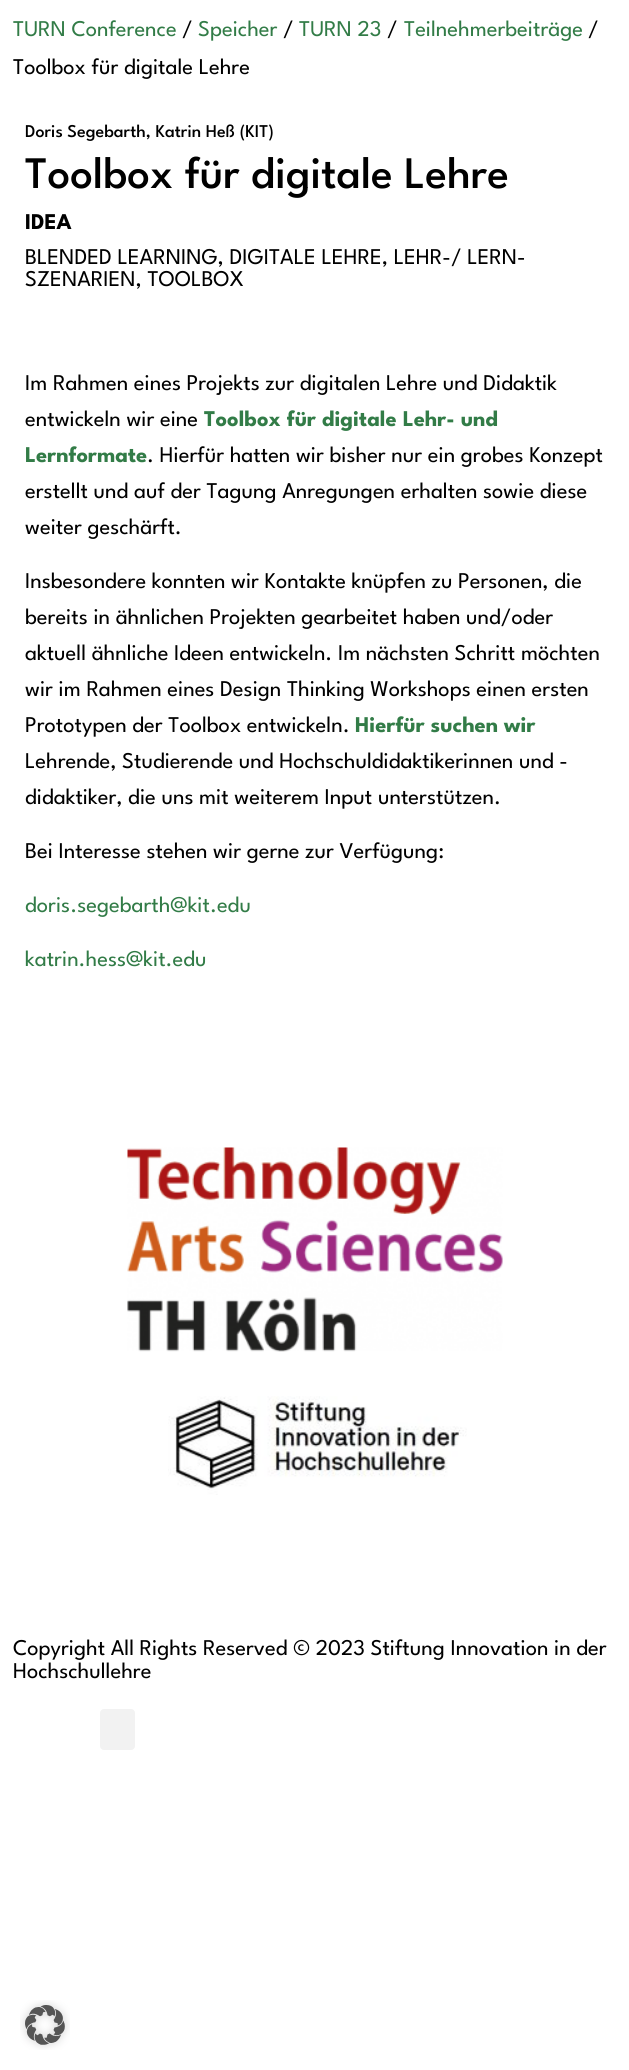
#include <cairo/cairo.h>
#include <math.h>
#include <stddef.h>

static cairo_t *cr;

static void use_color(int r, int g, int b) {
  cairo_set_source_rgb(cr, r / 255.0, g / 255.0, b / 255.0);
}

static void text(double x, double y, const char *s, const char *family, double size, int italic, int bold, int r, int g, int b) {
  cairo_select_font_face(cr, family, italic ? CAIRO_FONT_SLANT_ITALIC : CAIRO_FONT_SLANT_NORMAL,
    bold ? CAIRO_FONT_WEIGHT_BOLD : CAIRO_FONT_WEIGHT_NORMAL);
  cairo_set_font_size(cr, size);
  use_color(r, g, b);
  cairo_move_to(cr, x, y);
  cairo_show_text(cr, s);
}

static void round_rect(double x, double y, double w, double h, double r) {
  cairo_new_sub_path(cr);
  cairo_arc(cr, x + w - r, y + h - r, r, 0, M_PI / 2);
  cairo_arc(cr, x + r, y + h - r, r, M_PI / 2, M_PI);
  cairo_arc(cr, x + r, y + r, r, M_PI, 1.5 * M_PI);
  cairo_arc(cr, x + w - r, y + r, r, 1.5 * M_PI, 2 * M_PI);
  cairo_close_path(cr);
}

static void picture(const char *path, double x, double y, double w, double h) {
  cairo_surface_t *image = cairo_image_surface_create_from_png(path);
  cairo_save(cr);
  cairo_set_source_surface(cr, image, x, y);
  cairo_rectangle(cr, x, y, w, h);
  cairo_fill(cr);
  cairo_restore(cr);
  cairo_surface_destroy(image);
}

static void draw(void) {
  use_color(255, 255, 255);
  cairo_paint(cr);
  picture("img_01.png", 127, 1147, 376, 205);
  picture("img_02.png", 168, 1396, 299, 99);
  use_color(242, 242, 242);
  round_rect(100, 1709, 35, 41, 4);
  cairo_fill(cr);
  picture("img_03.png", 20, 2000, 50, 50);
  text(13, 36, "TURN Conference", "League Spartan Thin", 22.5, 0, 0, 50, 124, 71);
  text(182, 36, "/", "League Spartan Thin", 22.5, 0, 0, 0, 0, 0);
  text(198, 36, "Speicher", "League Spartan Thin", 22.5, 0, 0, 50, 124, 71);
  text(283, 36, "/", "League Spartan Thin", 22.5, 0, 0, 0, 0, 0);
  text(299, 36, "TURN 23", "League Spartan Thin", 22.5, 0, 0, 50, 124, 71);
  text(387, 36, "/", "League Spartan Thin", 22.5, 0, 0, 0, 0, 0);
  text(404, 36, "Teilnehmerbeiträge", "League Spartan Thin", 22.5, 0, 0, 50, 124, 71);
  text(588, 36, "/", "League Spartan Thin", 22.5, 0, 0, 0, 0, 0);
  text(13, 74, "Toolbox für digitale Lehre", "League Spartan Thin", 22.5, 0, 0, 0, 0, 0);
  text(25, 137, "Doris Segebarth, Katrin Heß (KIT)", "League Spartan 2 Thin", 18, 0, 0, 0, 0, 0);
  text(25, 188, "Toolbox für digitale Lehre", "League Spartan 2 Thin", 45, 0, 0, 0, 0, 0);
  text(25, 229, "IDEA", "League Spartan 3 Thin", 22.5, 0, 0, 0, 0, 0);
  text(25, 264, "BLENDED LEARNING, DIGITALE LEHRE, LEHR-/ LERN-", "League Spartan Thin", 22.5, 0, 0, 0, 0, 0);
  text(25, 286, "SZENARIEN, TOOLBOX", "League Spartan Thin", 22.5, 0, 0, 0, 0, 0);
  text(25, 390, "Im Rahmen eines Projekts zur digitalen Lehre und Didaktik", "League Spartan Thin", 22.5, 0, 0, 0, 0, 0);
  text(25, 426, "entwickeln wir eine", "League Spartan Thin", 22.5, 0, 0, 0, 0, 0);
  text(204, 426, "Toolbox für digitale Lehr- und", "League Spartan 3 Thin", 22.5, 0, 0, 50, 124, 71);
  text(25, 462, "Lernformate", "League Spartan 3 Thin", 22.5, 0, 0, 50, 124, 71);
  text(147, 462, ". Hierfür hatten wir bisher nur ein grobes Konzept", "League Spartan Thin", 22.5, 0, 0, 0, 0, 0);
  text(25, 498, "erstellt und auf der Tagung Anregungen erhalten sowie diese", "League Spartan Thin", 22.5, 0, 0, 0, 0, 0);
  text(25, 534, "weiter geschärft.", "League Spartan Thin", 22.5, 0, 0, 0, 0, 0);
  text(25, 588, "Insbesondere konnten wir Kontakte knüpfen zu Personen, die", "League Spartan Thin", 22.5, 0, 0, 0, 0, 0);
  text(25, 624, "bereits in ähnlichen Projekten gearbeitet haben und/oder", "League Spartan Thin", 22.5, 0, 0, 0, 0, 0);
  text(25, 660, "aktuell ähnliche Ideen entwickeln. Im nächsten Schritt möchten", "League Spartan Thin", 22.5, 0, 0, 0, 0, 0);
  text(25, 696, "wir im Rahmen eines Design Thinking Workshops einen ersten", "League Spartan Thin", 22.5, 0, 0, 0, 0, 0);
  text(25, 732, "Prototypen der Toolbox entwickeln.", "League Spartan Thin", 22.5, 0, 0, 0, 0, 0);
  text(355, 732, "Hierfür suchen wir", "League Spartan 3 Thin", 22.5, 0, 0, 50, 124, 71);
  text(25, 768, "Lehrende, Studierende und Hochschuldidaktikerinnen und -", "League Spartan Thin", 22.5, 0, 0, 0, 0, 0);
  text(25, 804, "didaktiker, die uns mit weiterem Input unterstützen.", "League Spartan Thin", 22.5, 0, 0, 0, 0, 0);
  text(25, 858, "Bei Interesse stehen wir gerne zur Verfügung:", "League Spartan Thin", 22.5, 0, 0, 0, 0, 0);
  text(25, 912, "doris.segebarth@kit.edu", "League Spartan Thin", 22.5, 0, 0, 50, 124, 71);
  text(25, 966, "katrin.hess@kit.edu", "League Spartan Thin", 22.5, 0, 0, 50, 124, 71);
  text(13, 1655, "Copyright All Rights Reserved © 2023 Stiftung Innovation in der", "League Spartan Thin", 22.5, 0, 0, 0, 0, 0);
  text(13, 1678, "Hochschullehre", "League Spartan Thin", 22.5, 0, 0, 0, 0, 0);
}

int main(void) {
  cairo_surface_t *surface = cairo_image_surface_create(CAIRO_FORMAT_RGB24, 629, 2070);
  cr = cairo_create(surface);
  cairo_font_options_t *options = cairo_font_options_create();
  cairo_font_options_set_hint_metrics(options, CAIRO_HINT_METRICS_OFF);
  cairo_font_options_set_hint_style(options, CAIRO_HINT_STYLE_NONE);
  cairo_set_font_options(cr, options);
  cairo_set_miter_limit(cr, 4);
  draw();
  cairo_surface_write_to_png(surface, "out.png");
  cairo_font_options_destroy(options);
  cairo_destroy(cr);
  cairo_surface_destroy(surface);
  return 0;
}
